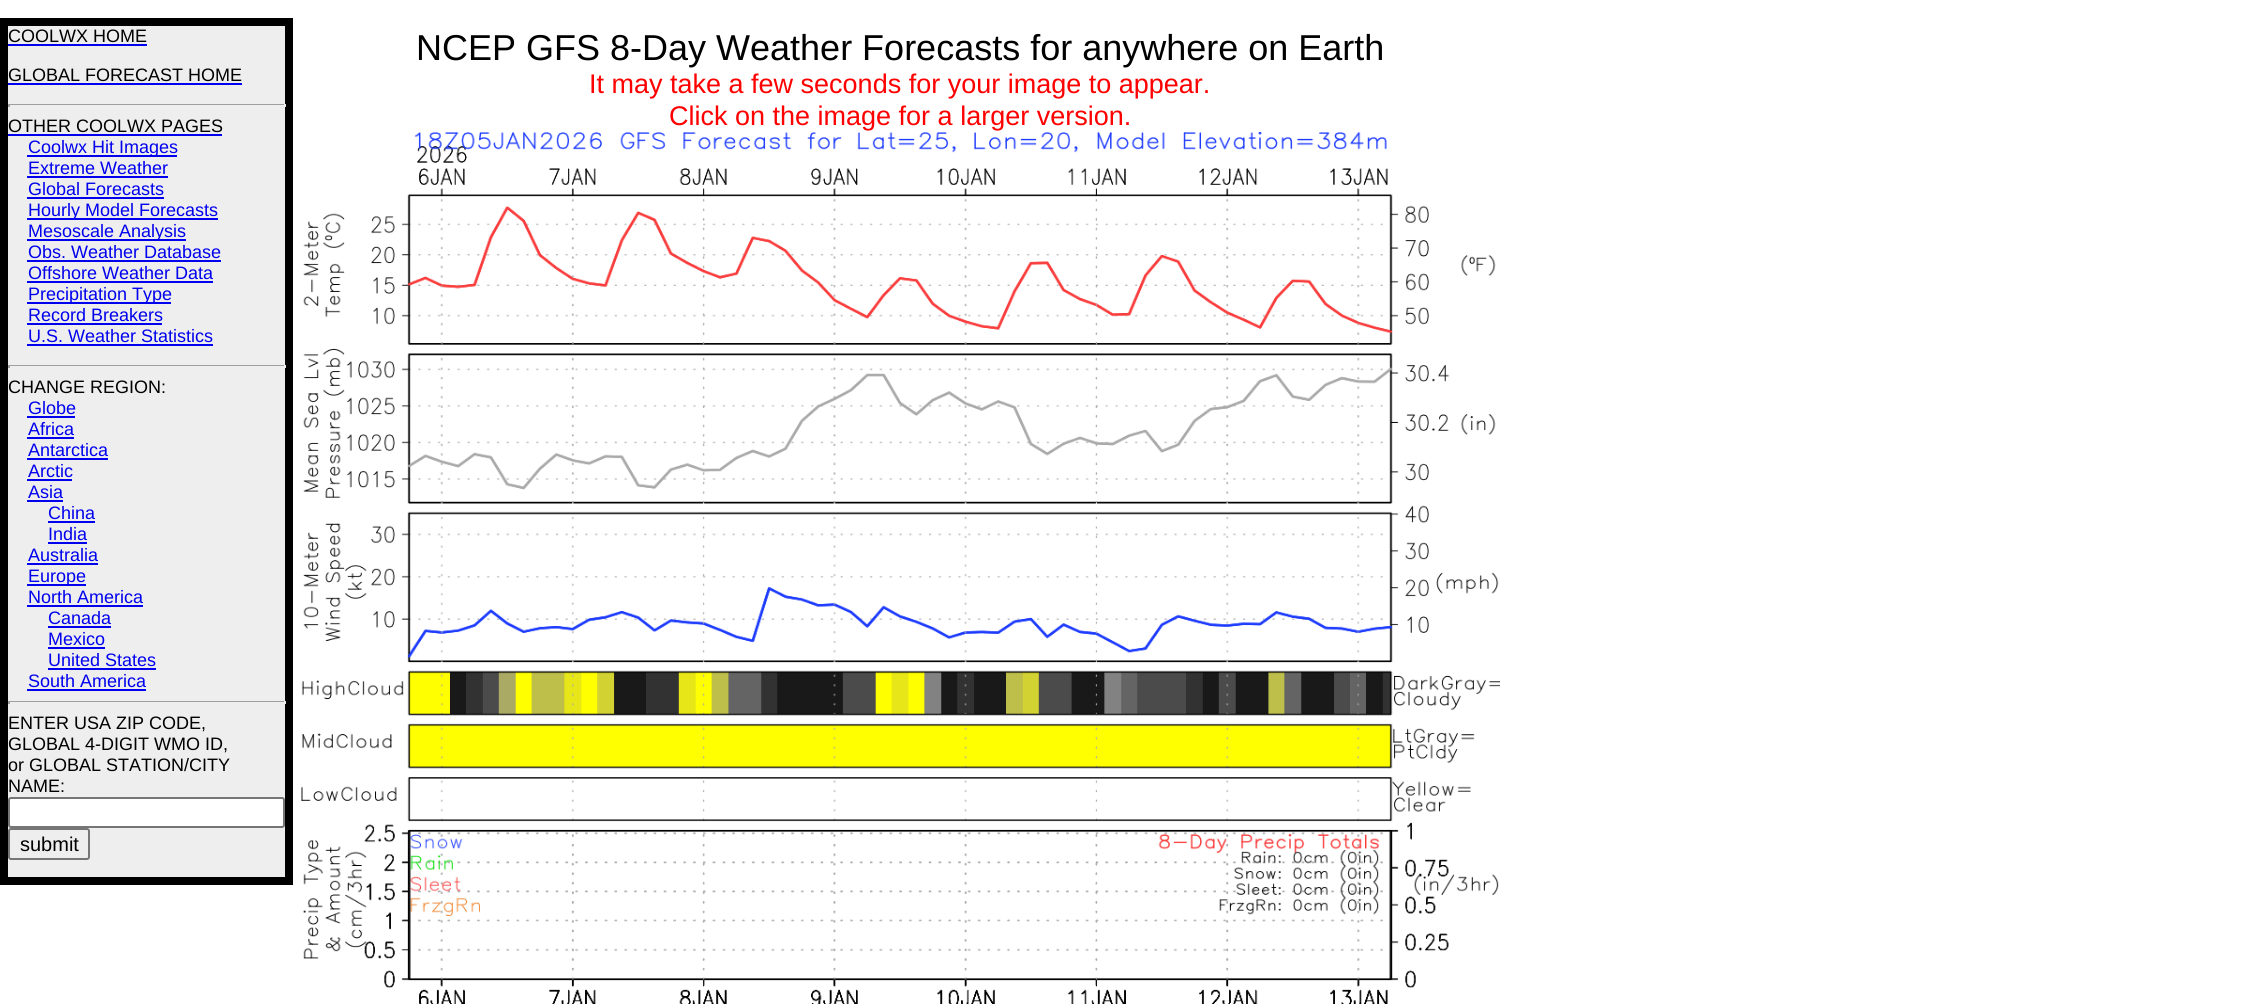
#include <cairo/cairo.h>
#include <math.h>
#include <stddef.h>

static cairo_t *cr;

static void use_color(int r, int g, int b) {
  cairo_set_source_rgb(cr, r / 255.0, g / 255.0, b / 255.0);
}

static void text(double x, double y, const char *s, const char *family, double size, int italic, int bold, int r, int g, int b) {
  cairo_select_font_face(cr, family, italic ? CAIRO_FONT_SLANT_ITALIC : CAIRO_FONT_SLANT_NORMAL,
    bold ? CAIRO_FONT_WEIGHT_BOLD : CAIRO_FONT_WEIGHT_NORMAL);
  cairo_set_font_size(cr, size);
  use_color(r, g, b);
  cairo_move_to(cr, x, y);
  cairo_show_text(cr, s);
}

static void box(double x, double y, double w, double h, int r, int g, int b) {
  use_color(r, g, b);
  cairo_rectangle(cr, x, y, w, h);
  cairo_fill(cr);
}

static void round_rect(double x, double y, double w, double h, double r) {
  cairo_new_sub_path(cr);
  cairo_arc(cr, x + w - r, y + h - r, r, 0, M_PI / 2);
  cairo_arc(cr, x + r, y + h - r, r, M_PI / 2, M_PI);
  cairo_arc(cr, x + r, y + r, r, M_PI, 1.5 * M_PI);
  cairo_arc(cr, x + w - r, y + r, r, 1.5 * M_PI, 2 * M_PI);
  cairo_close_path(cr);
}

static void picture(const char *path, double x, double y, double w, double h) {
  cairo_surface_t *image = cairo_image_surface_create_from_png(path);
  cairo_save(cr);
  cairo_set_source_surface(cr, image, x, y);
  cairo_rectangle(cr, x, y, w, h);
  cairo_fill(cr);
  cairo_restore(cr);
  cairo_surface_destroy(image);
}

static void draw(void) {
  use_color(255, 255, 255);
  cairo_paint(cr);
  use_color(238, 238, 238);
  cairo_rectangle(cr, 4, 22, 285, 859);
  cairo_fill_preserve(cr);
  use_color(0, 0, 0);
  cairo_set_line_width(cr, 8);
  cairo_stroke(cr);
  box(8, 44, 139, 2, 0, 0, 238);
  box(8, 83, 234, 2, 0, 0, 238);
  box(8, 104, 277, 1, 159, 159, 159);
  box(284, 104, 2, 3, 238, 238, 238);
  box(8, 104, 2, 3, 159, 159, 159);
  box(8, 134, 214, 2, 0, 0, 238);
  box(27, 155, 150, 2, 0, 0, 238);
  box(27, 176, 141, 2, 0, 0, 238);
  box(27, 197, 137, 2, 0, 0, 238);
  box(27, 218, 191, 2, 0, 0, 238);
  box(27, 239, 159, 2, 0, 0, 238);
  box(27, 260, 194, 2, 0, 0, 238);
  box(27, 281, 186, 2, 0, 0, 238);
  box(27, 302, 144, 2, 0, 0, 238);
  box(27, 323, 135, 2, 0, 0, 238);
  box(27, 344, 186, 2, 0, 0, 238);
  box(8, 365, 277, 1, 159, 159, 159);
  box(284, 365, 2, 3, 238, 238, 238);
  box(8, 365, 2, 3, 159, 159, 159);
  box(27, 416, 48, 2, 0, 0, 238);
  box(27, 437, 47, 2, 0, 0, 238);
  box(27, 458, 81, 2, 0, 0, 238);
  box(27, 479, 45, 2, 0, 0, 238);
  box(27, 500, 36, 2, 0, 0, 238);
  box(48, 521, 47, 2, 0, 0, 238);
  box(48, 542, 39, 2, 0, 0, 238);
  box(27, 563, 71, 2, 0, 0, 238);
  box(27, 584, 59, 2, 0, 0, 238);
  box(27, 605, 116, 2, 0, 0, 238);
  box(48, 626, 63, 2, 0, 0, 238);
  box(48, 647, 57, 2, 0, 0, 238);
  box(48, 668, 108, 2, 0, 0, 238);
  box(27, 689, 119, 2, 0, 0, 238);
  box(8, 701, 277, 1, 159, 159, 159);
  box(284, 701, 2, 3, 238, 238, 238);
  box(8, 701, 2, 3, 159, 159, 159);
  use_color(255, 255, 255);
  round_rect(9, 798, 275, 29, 2);
  cairo_fill_preserve(cr);
  use_color(118, 118, 118);
  cairo_set_line_width(cr, 2);
  cairo_stroke(cr);
  round_rect(9, 829, 80, 30, 2);
  cairo_stroke(cr);
  picture("img_01.png", 301, 132, 1199, 872);
  text(8, 42, "COOLWX HOME", "Liberation Sans", 18, 0, 0, 0, 0, 0);
  text(8, 81, "GLOBAL FORECAST HOME", "Liberation Sans", 18, 0, 0, 0, 0, 0);
  text(8, 132, "OTHER COOLWX PAGES", "Liberation Sans", 18, 0, 0, 0, 0, 0);
  text(28, 153, "Coolwx Hit Images", "Liberation Sans", 18, 0, 0, 0, 0, 238);
  text(28, 174, "Extreme Weather", "Liberation Sans", 18, 0, 0, 0, 0, 238);
  text(28, 195, "Global Forecasts", "Liberation Sans", 18, 0, 0, 0, 0, 238);
  text(28, 216, "Hourly Model Forecasts", "Liberation Sans", 18, 0, 0, 0, 0, 238);
  text(28, 237, "Mesoscale Analysis", "Liberation Sans", 18, 0, 0, 0, 0, 238);
  text(28, 258, "Obs. Weather Database", "Liberation Sans", 18, 0, 0, 0, 0, 238);
  text(28, 279, "Offshore Weather Data", "Liberation Sans", 18, 0, 0, 0, 0, 238);
  text(28, 300, "Precipitation Type", "Liberation Sans", 18, 0, 0, 0, 0, 238);
  text(28, 321, "Record Breakers", "Liberation Sans", 18, 0, 0, 0, 0, 238);
  text(28, 342, "U.S. Weather Statistics", "Liberation Sans", 18, 0, 0, 0, 0, 238);
  text(8, 393, "CHANGE REGION:", "Liberation Sans", 18, 0, 0, 0, 0, 0);
  text(28, 414, "Globe", "Liberation Sans", 18, 0, 0, 0, 0, 238);
  text(28, 435, "Africa", "Liberation Sans", 18, 0, 0, 0, 0, 238);
  text(28, 456, "Antarctica", "Liberation Sans", 18, 0, 0, 0, 0, 238);
  text(28, 477, "Arctic", "Liberation Sans", 18, 0, 0, 0, 0, 238);
  text(28, 498, "Asia", "Liberation Sans", 18, 0, 0, 0, 0, 238);
  text(48, 519, "China", "Liberation Sans", 18, 0, 0, 0, 0, 238);
  text(48, 540, "India", "Liberation Sans", 18, 0, 0, 0, 0, 238);
  text(28, 561, "Australia", "Liberation Sans", 18, 0, 0, 0, 0, 238);
  text(28, 582, "Europe", "Liberation Sans", 18, 0, 0, 0, 0, 238);
  text(28, 603, "North America", "Liberation Sans", 18, 0, 0, 0, 0, 238);
  text(48, 624, "Canada", "Liberation Sans", 18, 0, 0, 0, 0, 238);
  text(48, 645, "Mexico", "Liberation Sans", 18, 0, 0, 0, 0, 238);
  text(48, 666, "United States", "Liberation Sans", 18, 0, 0, 0, 0, 238);
  text(28, 687, "South America", "Liberation Sans", 18, 0, 0, 0, 0, 238);
  text(8, 729, "ENTER USA ZIP CODE,", "Liberation Sans", 18, 0, 0, 0, 0, 0);
  text(8, 750, "GLOBAL 4-DIGIT WMO ID,", "Liberation Sans", 18, 0, 0, 0, 0, 0);
  text(8, 771, "or GLOBAL STATION/CITY", "Liberation Sans", 18, 0, 0, 0, 0, 0);
  text(8, 792, "NAME:", "Liberation Sans", 18, 0, 0, 0, 0, 0);
  text(20, 851, "submit", "Liberation Sans", 20, 0, 0, 0, 0, 0);
  text(416, 60, "NCEP GFS 8-Day Weather Forecasts for anywhere on Earth", "Liberation Sans", 36, 0, 0, 0, 0, 0);
  text(589, 93, "It may take a few seconds for your image to appear.", "Liberation Sans", 27, 0, 0, 255, 0, 0);
  text(669, 125, "Click on the image for a larger version.", "Liberation Sans", 27, 0, 0, 255, 0, 0);
}

int main(void) {
  cairo_surface_t *surface = cairo_image_surface_create(CAIRO_FORMAT_RGB24, 2262, 1004);
  cr = cairo_create(surface);
  cairo_font_options_t *options = cairo_font_options_create();
  cairo_font_options_set_hint_metrics(options, CAIRO_HINT_METRICS_OFF);
  cairo_font_options_set_hint_style(options, CAIRO_HINT_STYLE_NONE);
  cairo_set_font_options(cr, options);
  cairo_set_miter_limit(cr, 4);
  draw();
  cairo_surface_write_to_png(surface, "out.png");
  cairo_font_options_destroy(options);
  cairo_destroy(cr);
  cairo_surface_destroy(surface);
  return 0;
}
